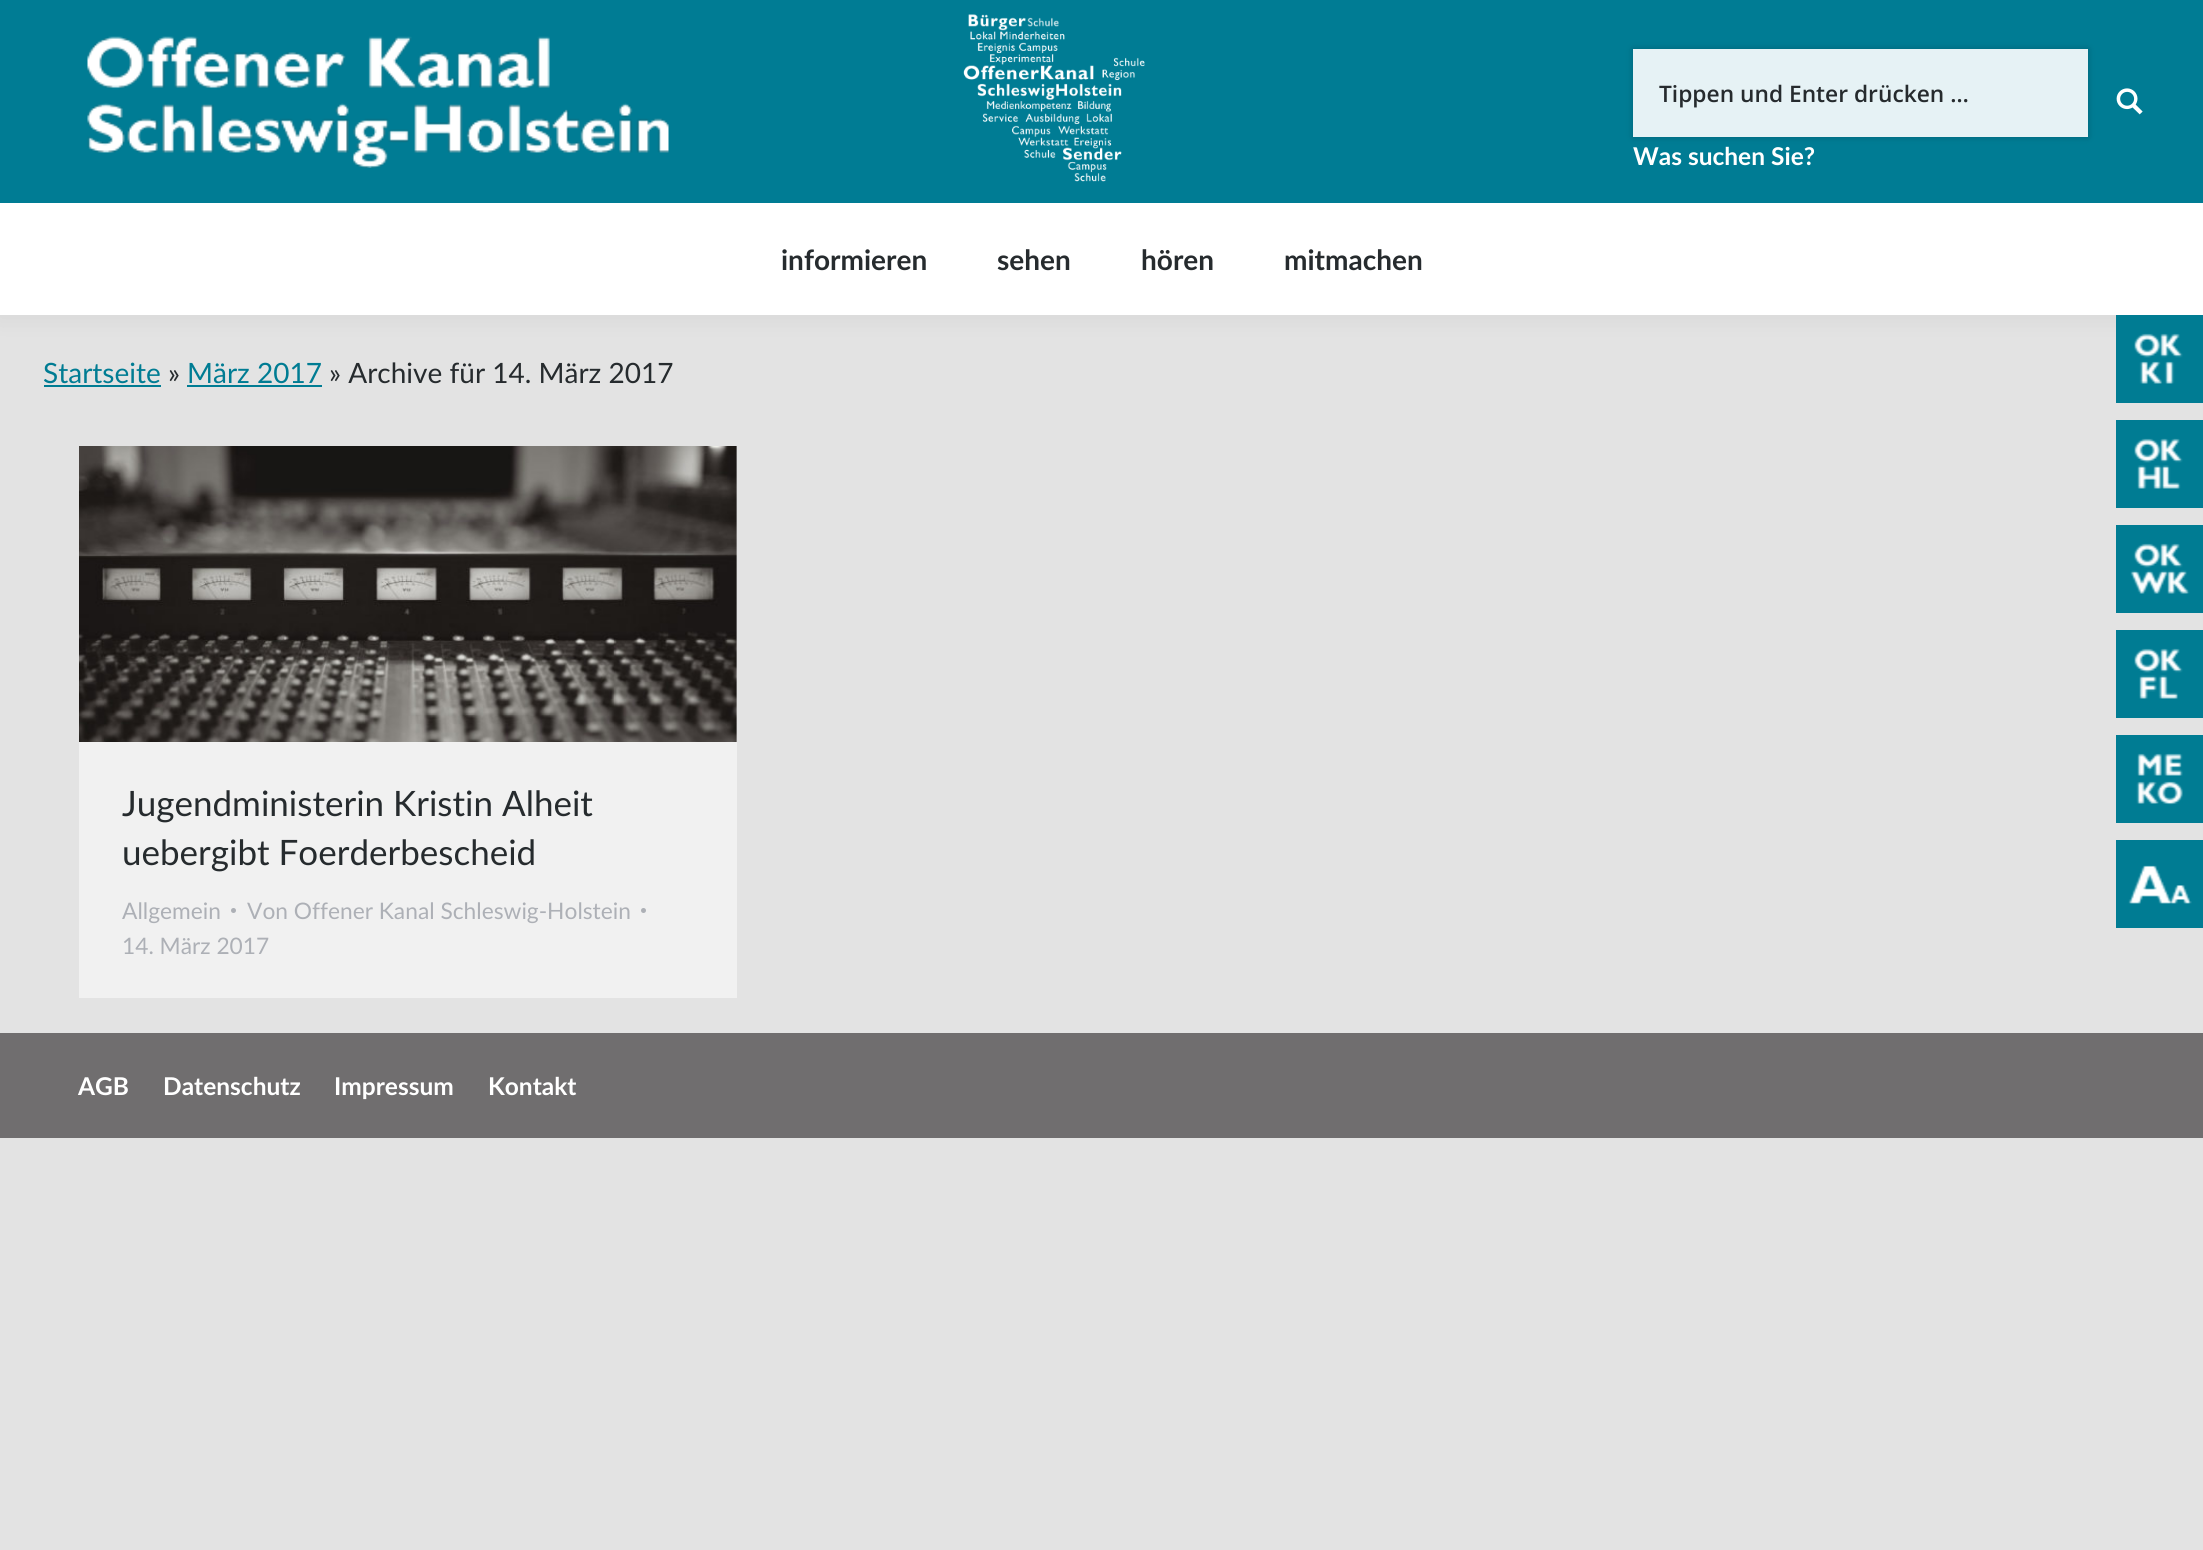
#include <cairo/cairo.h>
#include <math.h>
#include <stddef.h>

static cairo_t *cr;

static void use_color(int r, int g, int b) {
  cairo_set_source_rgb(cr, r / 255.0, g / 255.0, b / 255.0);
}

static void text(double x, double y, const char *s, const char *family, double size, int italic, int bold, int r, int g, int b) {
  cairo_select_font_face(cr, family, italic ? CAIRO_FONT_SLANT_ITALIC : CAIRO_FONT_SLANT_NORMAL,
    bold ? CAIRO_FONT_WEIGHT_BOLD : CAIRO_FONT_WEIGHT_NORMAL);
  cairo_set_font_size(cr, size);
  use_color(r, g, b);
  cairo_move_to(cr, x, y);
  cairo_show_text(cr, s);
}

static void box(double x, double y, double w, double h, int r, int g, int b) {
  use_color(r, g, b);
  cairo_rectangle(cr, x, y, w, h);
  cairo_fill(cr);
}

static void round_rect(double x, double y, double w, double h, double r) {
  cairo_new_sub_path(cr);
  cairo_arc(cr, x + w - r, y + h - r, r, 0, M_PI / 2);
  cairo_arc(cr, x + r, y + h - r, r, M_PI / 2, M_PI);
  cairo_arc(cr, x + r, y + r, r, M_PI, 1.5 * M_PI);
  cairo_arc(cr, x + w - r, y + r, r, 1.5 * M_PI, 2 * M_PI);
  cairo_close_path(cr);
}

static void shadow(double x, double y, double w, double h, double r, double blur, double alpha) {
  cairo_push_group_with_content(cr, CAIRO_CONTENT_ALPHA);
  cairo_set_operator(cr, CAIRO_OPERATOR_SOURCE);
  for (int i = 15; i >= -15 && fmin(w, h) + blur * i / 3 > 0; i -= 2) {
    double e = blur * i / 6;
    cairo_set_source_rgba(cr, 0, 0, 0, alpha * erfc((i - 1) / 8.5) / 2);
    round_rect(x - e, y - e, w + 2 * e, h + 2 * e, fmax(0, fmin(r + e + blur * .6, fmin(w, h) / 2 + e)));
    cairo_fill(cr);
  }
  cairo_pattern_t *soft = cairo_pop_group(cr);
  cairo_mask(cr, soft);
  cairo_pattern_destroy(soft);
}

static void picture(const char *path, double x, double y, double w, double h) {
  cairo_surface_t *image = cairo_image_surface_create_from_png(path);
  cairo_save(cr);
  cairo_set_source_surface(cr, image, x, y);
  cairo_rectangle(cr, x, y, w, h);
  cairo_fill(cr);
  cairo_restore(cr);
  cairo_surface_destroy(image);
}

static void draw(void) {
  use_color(227, 227, 227);
  cairo_paint(cr);
  use_color(0, 0, 0);
  shadow(-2, -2, 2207, 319, 0, 13, 0.07);
  box(0, 0, 2203, 203, 0, 124, 148);
  picture("img_01.png", 87, 36, 582, 132);
  picture("img_02.png", 963, 14, 182, 168);
  cairo_save(cr);
  cairo_set_fill_rule(cr, CAIRO_FILL_RULE_EVEN_ODD);
  cairo_new_path(cr);
  cairo_move_to(cr, 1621, 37);
  cairo_line_to(cr, 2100, 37);
  cairo_line_to(cr, 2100, 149);
  cairo_line_to(cr, 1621, 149);
  cairo_close_path(cr);
  cairo_move_to(cr, 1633, 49);
  cairo_line_to(cr, 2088, 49);
  cairo_line_to(cr, 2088, 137);
  cairo_line_to(cr, 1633, 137);
  cairo_close_path(cr);
  cairo_clip(cr);
  use_color(0, 0, 0);
  shadow(1633, 49, 455, 88, 0, 3.5, 0.2);
  cairo_restore(cr);
  cairo_set_source_rgba(cr, 1, 1, 1, 0.9);
  cairo_rectangle(cr, 1633, 49, 455, 88);
  cairo_fill(cr);
  picture("img_03.png", 2116, 88, 27, 27);
  box(0, 203, 2203, 112, 255, 255, 255);
  box(44, 385, 117, 2, 0, 124, 147);
  box(187, 385, 135, 2, 0, 124, 147);
  box(79, 742, 658, 256, 241, 241, 241);
  box(736, 446, 1, 296, 230, 230, 231);
  picture("img_04.png", 79, 446, 658, 296);
  use_color(173, 176, 182);
  cairo_arc(cr, 233.5, 910.5, 2.5, 0, 2 * M_PI);
  cairo_fill(cr);
  cairo_arc(cr, 643.5, 910.5, 2.5, 0, 2 * M_PI);
  cairo_fill(cr);
  box(0, 1033, 2203, 105, 112, 110, 111);
  box(2116, 315, 87, 88, 0, 124, 147);
  picture("img_05.png", 2134, 333, 49, 51);
  box(2116, 420, 87, 88, 0, 124, 147);
  picture("img_06.png", 2134, 438, 49, 51);
  box(2116, 525, 87, 88, 0, 124, 147);
  picture("img_07.png", 2130, 543, 60, 51);
  box(2116, 630, 87, 88, 0, 124, 147);
  picture("img_08.png", 2134, 648, 49, 51);
  box(2116, 735, 87, 88, 0, 124, 147);
  picture("img_09.png", 2136, 753, 47, 52);
  box(2116, 840, 87, 88, 0, 124, 147);
  picture("img_10.png", 2128, 865, 64, 39);
  text(1659, 102, "Tippen und Enter drücken …", "Open Sans SemiBold", 22.75, 0, 0, 38, 43, 46);
  text(1633, 165, "Was suchen Sie?", "Lato", 24.5, 0, 1, 255, 255, 255);
  text(781, 270, "informieren", "Lato", 28, 0, 1, 38, 43, 46);
  text(997, 270, "sehen", "Lato", 28, 0, 1, 38, 43, 46);
  text(1141, 270, "hören", "Lato", 28, 0, 1, 38, 43, 46);
  text(1284, 270, "mitmachen", "Lato", 28, 0, 1, 38, 43, 46);
  text(43, 383, "Startseite", "Lato", 28, 0, 0, 0, 124, 147);
  text(168, 383, "»", "Lato", 28, 0, 0, 38, 43, 46);
  text(187, 383, "März 2017", "Lato", 28, 0, 0, 0, 124, 147);
  text(329, 383, "» Archive für 14. März 2017", "Lato", 28, 0, 0, 38, 43, 46);
  text(122, 816, "Jugendministerin Kristin Alheit", "Lato", 35, 0, 0, 38, 43, 46);
  text(122, 865, "uebergibt Foerderbescheid", "Lato", 35, 0, 0, 38, 43, 46);
  text(122, 919, "Allgemein", "Lato", 22.75, 0, 0, 173, 176, 182);
  text(247, 919, "Von Offener Kanal Schleswig-Holstein", "Lato", 22.75, 0, 0, 173, 176, 182);
  text(122, 954, "14. März 2017", "Lato", 22.75, 0, 0, 173, 176, 182);
  text(78, 1095, "AGB", "Lato", 24.5, 0, 1, 255, 255, 255);
  text(163, 1095, "Datenschutz", "Lato", 24.5, 0, 1, 255, 255, 255);
  text(334, 1095, "Impressum", "Lato", 24.5, 0, 1, 255, 255, 255);
  text(488, 1095, "Kontakt", "Lato", 24.5, 0, 1, 255, 255, 255);
}

int main(void) {
  cairo_surface_t *surface = cairo_image_surface_create(CAIRO_FORMAT_RGB24, 2203, 1550);
  cr = cairo_create(surface);
  cairo_font_options_t *options = cairo_font_options_create();
  cairo_font_options_set_hint_metrics(options, CAIRO_HINT_METRICS_OFF);
  cairo_font_options_set_hint_style(options, CAIRO_HINT_STYLE_NONE);
  cairo_set_font_options(cr, options);
  cairo_set_miter_limit(cr, 4);
  draw();
  cairo_surface_write_to_png(surface, "out.png");
  cairo_font_options_destroy(options);
  cairo_destroy(cr);
  cairo_surface_destroy(surface);
  return 0;
}
